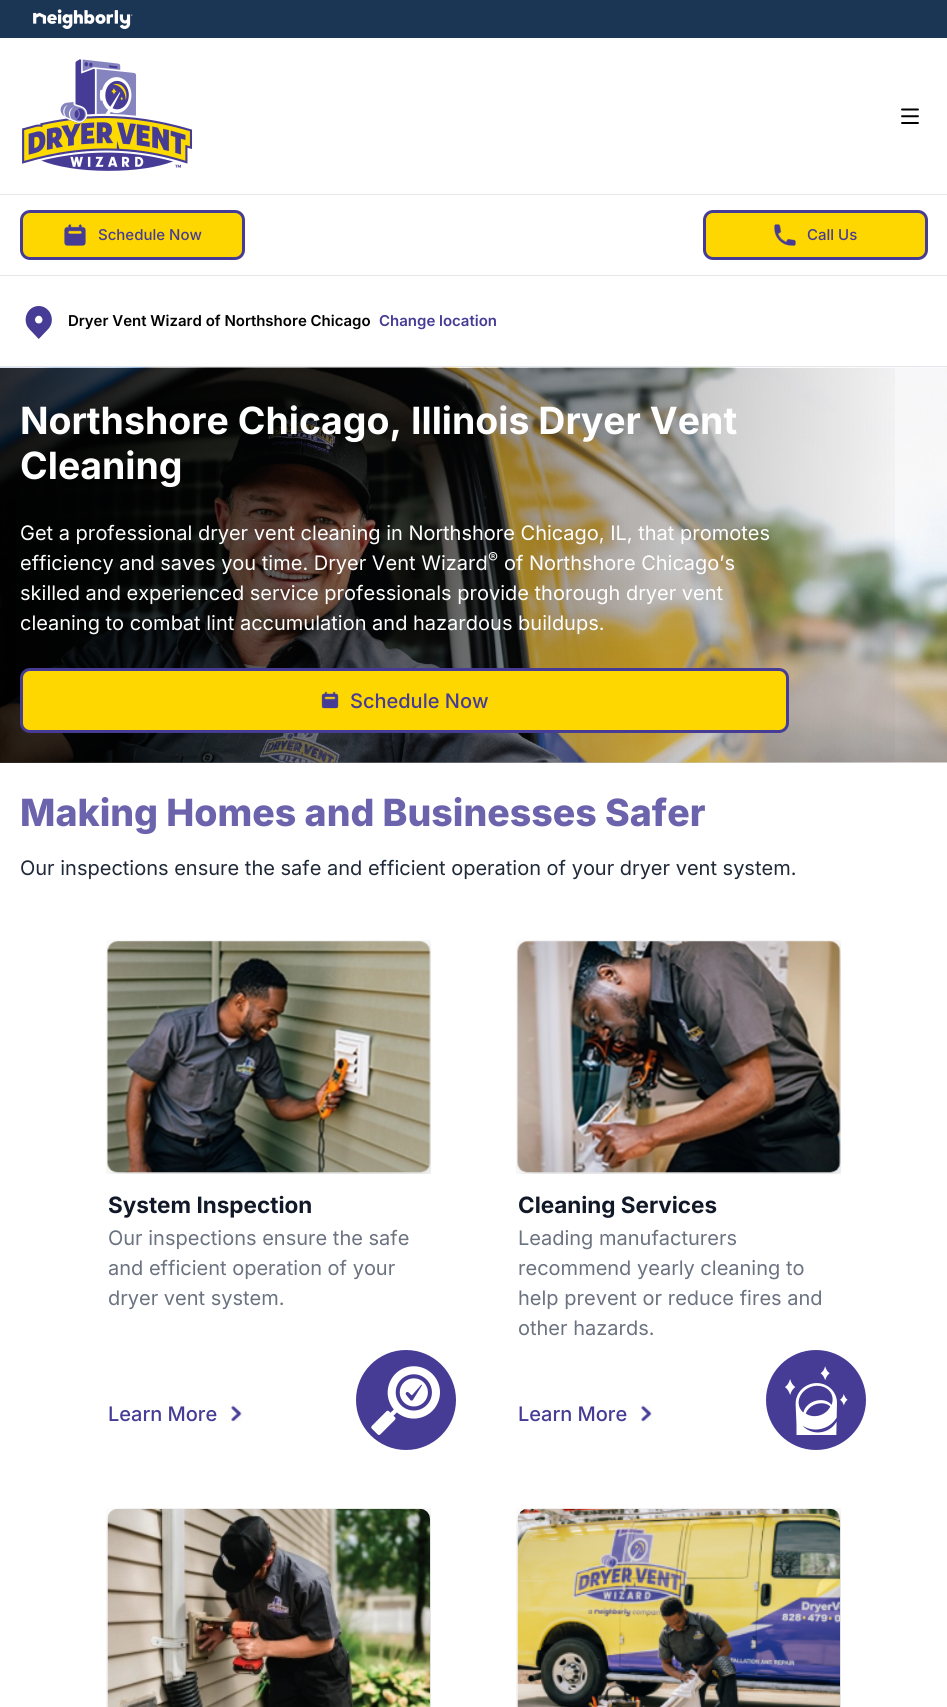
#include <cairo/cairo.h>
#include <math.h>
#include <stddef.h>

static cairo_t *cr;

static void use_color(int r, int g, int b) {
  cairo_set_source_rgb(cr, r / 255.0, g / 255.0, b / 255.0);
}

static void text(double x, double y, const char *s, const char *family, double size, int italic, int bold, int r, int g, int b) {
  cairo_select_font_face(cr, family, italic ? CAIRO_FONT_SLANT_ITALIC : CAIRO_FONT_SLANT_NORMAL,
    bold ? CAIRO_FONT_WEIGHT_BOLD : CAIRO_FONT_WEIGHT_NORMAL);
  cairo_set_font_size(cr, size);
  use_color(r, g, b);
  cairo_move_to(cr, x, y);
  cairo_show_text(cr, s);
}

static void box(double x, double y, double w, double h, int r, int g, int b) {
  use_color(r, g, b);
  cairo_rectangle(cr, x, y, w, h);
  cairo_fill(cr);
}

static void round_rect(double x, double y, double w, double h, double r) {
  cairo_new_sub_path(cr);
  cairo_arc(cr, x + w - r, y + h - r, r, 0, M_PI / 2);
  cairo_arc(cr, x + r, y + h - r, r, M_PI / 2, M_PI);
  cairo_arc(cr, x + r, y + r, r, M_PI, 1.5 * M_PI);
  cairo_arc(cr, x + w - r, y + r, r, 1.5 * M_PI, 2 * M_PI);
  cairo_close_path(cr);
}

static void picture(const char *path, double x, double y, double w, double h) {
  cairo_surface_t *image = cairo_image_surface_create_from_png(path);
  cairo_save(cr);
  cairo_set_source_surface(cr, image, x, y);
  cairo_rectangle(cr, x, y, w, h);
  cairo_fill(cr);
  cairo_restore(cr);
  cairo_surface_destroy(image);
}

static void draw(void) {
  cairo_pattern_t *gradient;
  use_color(255, 255, 255);
  cairo_paint(cr);
  box(0, 0, 947, 38, 27, 53, 84);
  picture("img_01.png", 33, 9, 100, 20);
  picture("img_02.png", 22, 59, 171, 112);
  picture("img_03.png", 901, 108, 18, 16);
  box(0, 194, 947, 1, 229, 231, 235);
  box(0, 275, 947, 1, 229, 231, 235);
  use_color(254, 214, 0);
  round_rect(21.5, 211.5, 222, 47, 8.5);
  cairo_fill_preserve(cr);
  use_color(70, 60, 150);
  cairo_set_line_width(cr, 3);
  cairo_stroke(cr);
  picture("img_04.png", 64, 224, 22, 22);
  use_color(254, 214, 0);
  round_rect(704.5, 211.5, 222, 47, 8.5);
  cairo_fill_preserve(cr);
  use_color(70, 60, 150);
  cairo_stroke(cr);
  picture("img_05.png", 774, 224, 22, 22);
  box(0, 366, 947, 1, 229, 231, 235);
  picture("img_06.png", 25, 306, 27, 33);
  picture("img_07.png", 0, 367, 947, 396);
  gradient = cairo_pattern_create_linear(0, 565, 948, 565);
  cairo_pattern_add_color_stop_rgba(gradient, 0, 0, 0, 0, 0.8);
  cairo_pattern_add_color_stop_rgba(gradient, 0.97, 0, 0, 0, 0);
  cairo_set_source(cr, gradient);
  cairo_pattern_destroy(gradient);
  cairo_rectangle(cr, 0, 368, 895, 395);
  cairo_fill(cr);
  use_color(254, 214, 0);
  round_rect(21.5, 669.5, 766, 62, 8.5);
  cairo_fill_preserve(cr);
  use_color(70, 60, 150);
  cairo_stroke(cr);
  picture("img_08.png", 321, 691, 18, 18);
  picture("img_09.png", 106, 940, 325, 234);
  picture("img_10.png", 231, 1405, 11, 17);
  cairo_arc(cr, 406, 1400, 50, 0, 2 * M_PI);
  cairo_fill(cr);
  picture("img_11.png", 371, 1366, 69, 69);
  picture("img_12.png", 516, 940, 325, 234);
  picture("img_10.png", 641, 1405, 11, 17);
  cairo_arc(cr, 816, 1400, 50, 0, 2 * M_PI);
  cairo_fill(cr);
  picture("img_13.png", 785, 1366, 63, 69);
  picture("img_14.png", 106, 1508, 325, 199);
  picture("img_15.png", 516, 1508, 325, 199);
  text(98, 240, "Schedule Now", "Inter Medium", 15, 0, 0, 70, 60, 150);
  text(807, 240, "Call Us", "Inter Medium", 15, 0, 0, 70, 60, 150);
  text(68, 326, "Dryer Vent Wizard of Northshore Chicago", "Inter SemiBold", 15, 0, 0, 0, 0, 0);
  text(379, 326, "Change location", "Inter SemiBold", 15, 0, 0, 70, 60, 150);
  text(20, 434, "Northshore Chicago, Illinois Dryer Vent", "Inter", 37.5, 0, 1, 255, 255, 255);
  text(20, 479, "Cleaning", "Inter", 37.5, 0, 1, 255, 255, 255);
  text(20, 540, "Get a professional dryer vent cleaning in Northshore Chicago, IL, that promotes", "Inter", 20, 0, 0, 255, 255, 255);
  text(20, 570, "efficiency and saves you time. Dryer Vent Wizard", "Inter", 20, 0, 0, 255, 255, 255);
  text(488, 563, "®", "Inter", 15, 0, 0, 255, 255, 255);
  text(504, 570, "of Northshore Chicago’s", "Inter", 20, 0, 0, 255, 255, 255);
  text(20, 600, "skilled and experienced service professionals provide thorough dryer vent", "Inter", 20, 0, 0, 255, 255, 255);
  text(20, 630, "cleaning to combat lint accumulation and hazardous buildups.", "Inter", 20, 0, 0, 255, 255, 255);
  text(350, 708, "Schedule Now", "Inter Medium", 20, 0, 0, 70, 60, 150);
  text(20, 826, "Making Homes and Businesses Safer", "Inter ExtraBold", 37.5, 0, 0, 107, 99, 171);
  text(20, 875, "Our inspections ensure the safe and efficient operation of your dryer vent system.", "Inter", 20, 0, 0, 31, 41, 55);
  text(108, 1213, "System Inspection", "Inter", 22.5, 0, 1, 17, 24, 39);
  text(108, 1245, "Our inspections ensure the safe", "Inter", 20, 0, 0, 107, 114, 128);
  text(108, 1275, "and efficient operation of your", "Inter", 20, 0, 0, 107, 114, 128);
  text(108, 1305, "dryer vent system.", "Inter", 20, 0, 0, 107, 114, 128);
  text(108, 1421, "Learn More", "Inter Medium", 20, 0, 0, 70, 60, 150);
  text(518, 1213, "Cleaning Services", "Inter", 22.5, 0, 1, 17, 24, 39);
  text(518, 1245, "Leading manufacturers", "Inter", 20, 0, 0, 107, 114, 128);
  text(518, 1275, "recommend yearly cleaning to", "Inter", 20, 0, 0, 107, 114, 128);
  text(518, 1305, "help prevent or reduce fires and", "Inter", 20, 0, 0, 107, 114, 128);
  text(518, 1335, "other hazards.", "Inter", 20, 0, 0, 107, 114, 128);
  text(518, 1421, "Learn More", "Inter Medium", 20, 0, 0, 70, 60, 150);
}

int main(void) {
  cairo_surface_t *surface = cairo_image_surface_create(CAIRO_FORMAT_RGB24, 947, 1707);
  cr = cairo_create(surface);
  cairo_font_options_t *options = cairo_font_options_create();
  cairo_font_options_set_hint_metrics(options, CAIRO_HINT_METRICS_OFF);
  cairo_font_options_set_hint_style(options, CAIRO_HINT_STYLE_NONE);
  cairo_set_font_options(cr, options);
  cairo_set_miter_limit(cr, 4);
  draw();
  cairo_surface_write_to_png(surface, "out.png");
  cairo_font_options_destroy(options);
  cairo_destroy(cr);
  cairo_surface_destroy(surface);
  return 0;
}
